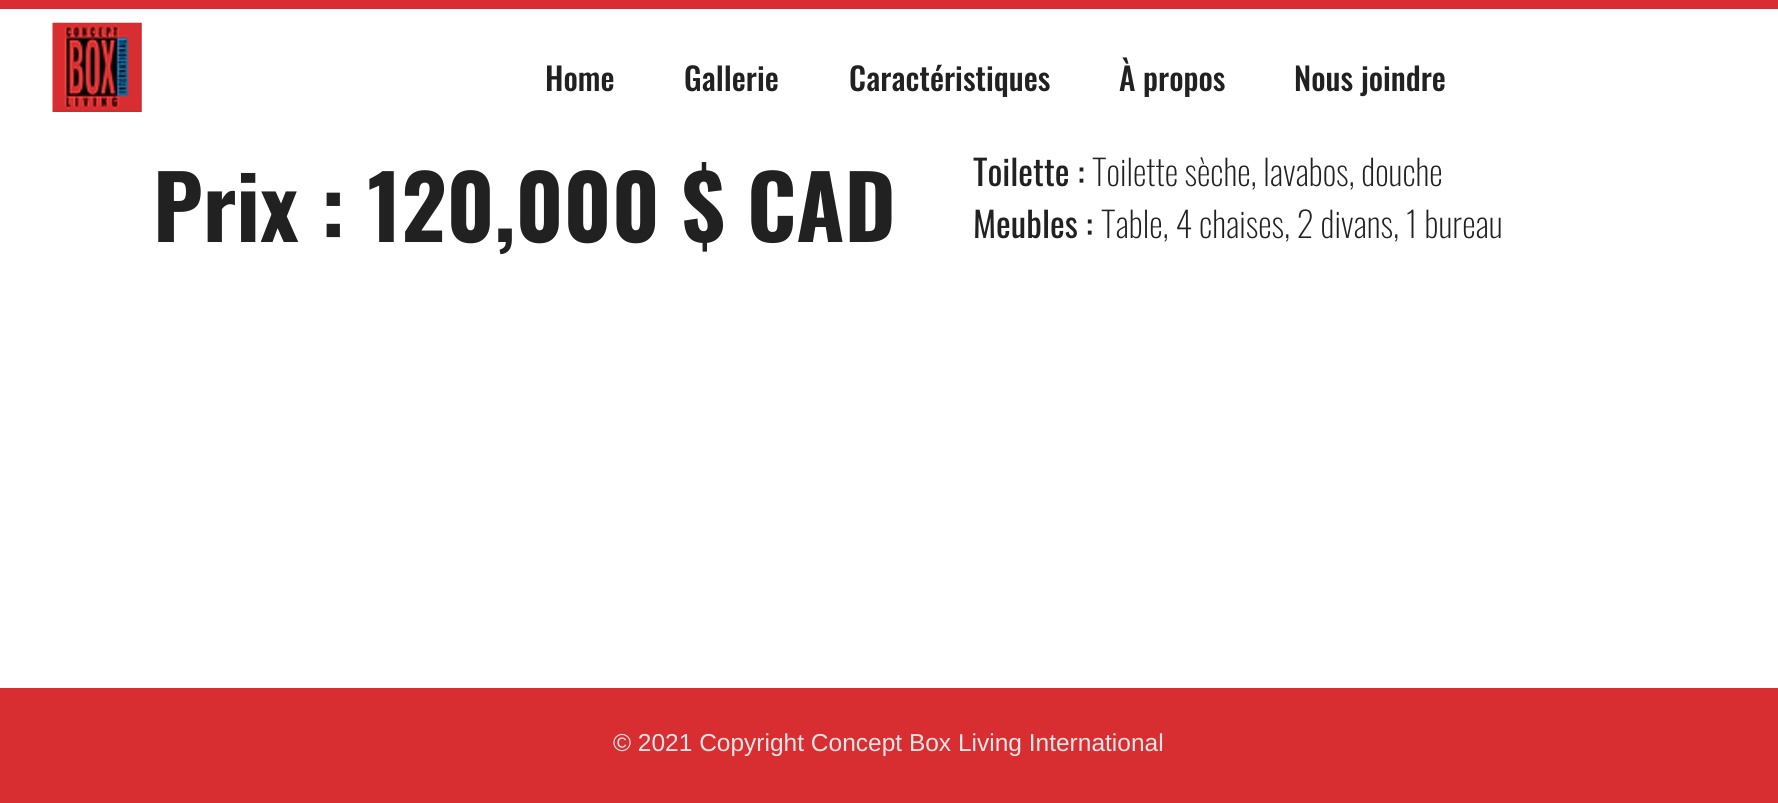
#include <cairo/cairo.h>
#include <math.h>
#include <stddef.h>

static cairo_t *cr;

static void use_color(int r, int g, int b) {
  cairo_set_source_rgb(cr, r / 255.0, g / 255.0, b / 255.0);
}

static void text(double x, double y, const char *s, const char *family, double size, int italic, int bold, int r, int g, int b) {
  cairo_select_font_face(cr, family, italic ? CAIRO_FONT_SLANT_ITALIC : CAIRO_FONT_SLANT_NORMAL,
    bold ? CAIRO_FONT_WEIGHT_BOLD : CAIRO_FONT_WEIGHT_NORMAL);
  cairo_set_font_size(cr, size);
  use_color(r, g, b);
  cairo_move_to(cr, x, y);
  cairo_show_text(cr, s);
}

static void box(double x, double y, double w, double h, int r, int g, int b) {
  use_color(r, g, b);
  cairo_rectangle(cr, x, y, w, h);
  cairo_fill(cr);
}

static void picture(const char *path, double x, double y, double w, double h) {
  cairo_surface_t *image = cairo_image_surface_create_from_png(path);
  cairo_save(cr);
  cairo_set_source_surface(cr, image, x, y);
  cairo_rectangle(cr, x, y, w, h);
  cairo_fill(cr);
  cairo_restore(cr);
  cairo_surface_destroy(image);
}

static void draw(void) {
  use_color(255, 255, 255);
  cairo_paint(cr);
  box(0, 0, 1778, 9, 216, 46, 49);
  picture("img_01.png", 52, 22, 90, 90);
  box(0, 688, 1778, 115, 216, 46, 49);
  text(545, 91, "Home", "Oswald Medium", 31.5, 0, 0, 33, 33, 33);
  text(684, 91, "Gallerie", "Oswald Medium", 31.5, 0, 0, 33, 33, 33);
  text(849, 91, "Caractéristiques", "Oswald Medium", 31.5, 0, 0, 33, 33, 33);
  text(1119, 91, "À propos", "Oswald Medium", 31.5, 0, 0, 33, 33, 33);
  text(1294, 91, "Nous joindre", "Oswald Medium", 31.5, 0, 0, 33, 33, 33);
  text(153, 242, "Prix : 120,000 $ CAD", "Oswald", 87.5, 0, 1, 33, 33, 33);
  text(973, 186, "Toilette :", "Oswald", 35, 0, 0, 33, 33, 33);
  text(1092, 186, "Toilette sèche, lavabos, douche", "Oswald ExtraLight", 35, 0, 0, 33, 33, 33);
  text(973, 238, "Meubles :", "Oswald", 35, 0, 0, 33, 33, 33);
  text(1101, 238, "Table, 4 chaises, 2 divans, 1 bureau", "Oswald ExtraLight", 35, 0, 0, 33, 33, 33);
  text(613, 751, "© 2021 Copyright Concept Box Living International", "Liberation Sans", 24.5, 0, 0, 232, 230, 230);
}

int main(void) {
  cairo_surface_t *surface = cairo_image_surface_create(CAIRO_FORMAT_RGB24, 1778, 803);
  cr = cairo_create(surface);
  cairo_font_options_t *options = cairo_font_options_create();
  cairo_font_options_set_hint_metrics(options, CAIRO_HINT_METRICS_OFF);
  cairo_font_options_set_hint_style(options, CAIRO_HINT_STYLE_NONE);
  cairo_set_font_options(cr, options);
  cairo_set_miter_limit(cr, 4);
  draw();
  cairo_surface_write_to_png(surface, "out.png");
  cairo_font_options_destroy(options);
  cairo_destroy(cr);
  cairo_surface_destroy(surface);
  return 0;
}
